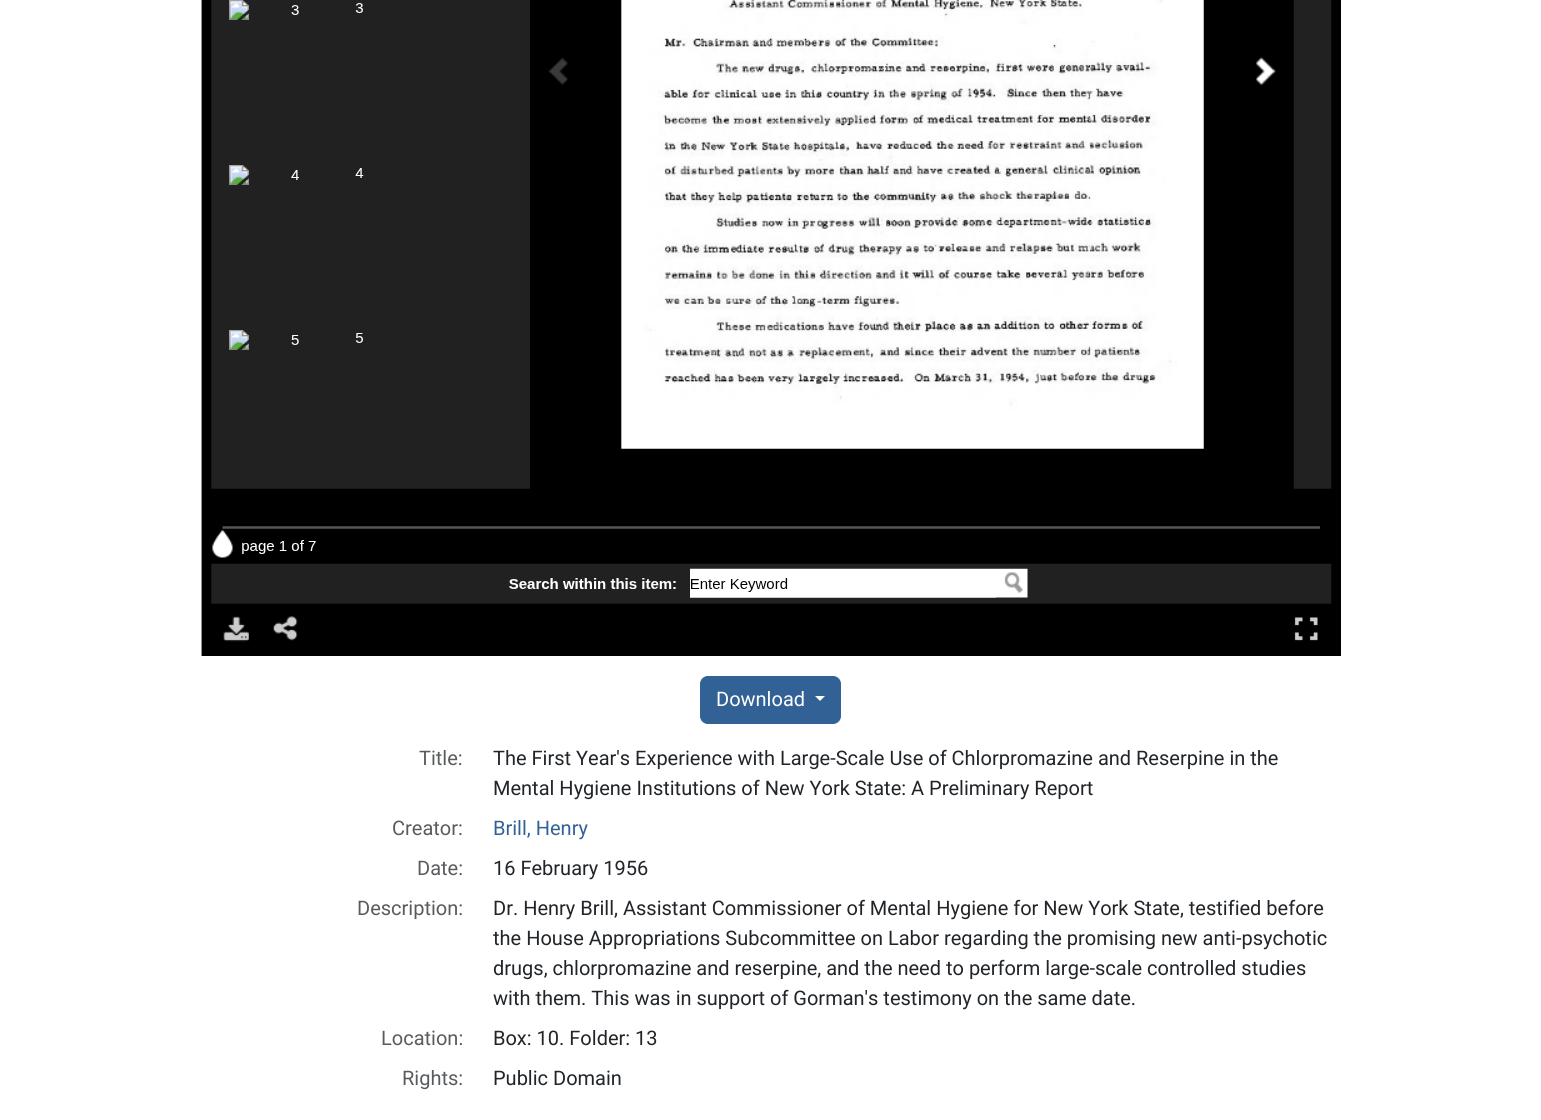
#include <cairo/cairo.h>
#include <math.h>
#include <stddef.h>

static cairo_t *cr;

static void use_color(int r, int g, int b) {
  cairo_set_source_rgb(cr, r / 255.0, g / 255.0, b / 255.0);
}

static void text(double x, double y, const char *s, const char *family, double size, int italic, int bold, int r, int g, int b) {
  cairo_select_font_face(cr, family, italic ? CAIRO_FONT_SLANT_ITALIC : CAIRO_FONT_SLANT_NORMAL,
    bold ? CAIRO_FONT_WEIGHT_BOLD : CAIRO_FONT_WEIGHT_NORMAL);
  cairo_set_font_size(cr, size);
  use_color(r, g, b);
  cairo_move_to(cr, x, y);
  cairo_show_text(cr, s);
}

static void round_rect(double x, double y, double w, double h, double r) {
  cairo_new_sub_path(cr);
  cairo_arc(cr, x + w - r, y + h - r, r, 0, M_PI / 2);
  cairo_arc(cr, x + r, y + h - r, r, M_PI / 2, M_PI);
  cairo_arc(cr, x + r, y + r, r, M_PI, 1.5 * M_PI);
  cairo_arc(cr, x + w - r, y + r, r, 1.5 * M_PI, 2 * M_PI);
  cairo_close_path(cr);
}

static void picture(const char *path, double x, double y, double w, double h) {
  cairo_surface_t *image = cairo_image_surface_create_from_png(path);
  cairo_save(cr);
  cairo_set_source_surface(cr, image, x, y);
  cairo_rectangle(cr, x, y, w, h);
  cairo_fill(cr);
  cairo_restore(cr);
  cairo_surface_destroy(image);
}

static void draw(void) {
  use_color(255, 255, 255);
  cairo_paint(cr);
  picture("img_01.png", 201, 0, 1140, 656);
  use_color(50, 98, 149);
  round_rect(700.5, 676.5, 140, 47, 7.5);
  cairo_fill_preserve(cr);
  cairo_set_line_width(cr, 1);
  cairo_stroke(cr);
  use_color(255, 255, 255);
  cairo_new_path(cr);
  cairo_move_to(cr, 815, 696);
  cairo_line_to(cr, 825, 696);
  cairo_line_to(cr, 820, 701);
  cairo_close_path(cr);
  cairo_fill(cr);
  text(716, 706, "Download", "Roboto", 20, 0, 0, 255, 255, 255);
  text(419, 765, "Title:", "Roboto", 20, 0, 0, 89, 92, 95);
  text(493, 765, "The First Year's Experience with Large-Scale Use of Chlorpromazine and Reserpine in the", "Roboto", 20, 0, 0, 33, 37, 41);
  text(493, 795, "Mental Hygiene Institutions of New York State: A Preliminary Report", "Roboto", 20, 0, 0, 33, 37, 41);
  text(392, 835, "Creator:", "Roboto", 20, 0, 0, 89, 92, 95);
  text(493, 835, "Brill, Henry", "Roboto", 20, 0, 0, 50, 98, 149);
  text(417, 875, "Date:", "Roboto", 20, 0, 0, 89, 92, 95);
  text(493, 875, "16 February 1956", "Roboto", 20, 0, 0, 33, 37, 41);
  text(357, 915, "Description:", "Roboto", 20, 0, 0, 89, 92, 95);
  text(493, 915, "Dr. Henry Brill, Assistant Commissioner of Mental Hygiene for New York State, testified before", "Roboto", 20, 0, 0, 33, 37, 41);
  text(493, 945, "the House Appropriations Subcommittee on Labor regarding the promising new anti-psychotic", "Roboto", 20, 0, 0, 33, 37, 41);
  text(493, 975, "drugs, chlorpromazine and reserpine, and the need to perform large-scale controlled studies", "Roboto", 20, 0, 0, 33, 37, 41);
  text(493, 1005, "with them. This was in support of Gorman's testimony on the same date.", "Roboto", 20, 0, 0, 33, 37, 41);
  text(381, 1045, "Location:", "Roboto", 20, 0, 0, 89, 92, 95);
  text(493, 1045, "Box: 10. Folder: 13", "Roboto", 20, 0, 0, 33, 37, 41);
  text(402, 1085, "Rights:", "Roboto", 20, 0, 0, 89, 92, 95);
  text(493, 1085, "Public Domain", "Roboto", 20, 0, 0, 33, 37, 41);
}

int main(void) {
  cairo_surface_t *surface = cairo_image_surface_create(CAIRO_FORMAT_RGB24, 1541, 1120);
  cr = cairo_create(surface);
  cairo_font_options_t *options = cairo_font_options_create();
  cairo_font_options_set_hint_metrics(options, CAIRO_HINT_METRICS_OFF);
  cairo_font_options_set_hint_style(options, CAIRO_HINT_STYLE_NONE);
  cairo_set_font_options(cr, options);
  cairo_set_miter_limit(cr, 4);
  draw();
  cairo_surface_write_to_png(surface, "out.png");
  cairo_font_options_destroy(options);
  cairo_destroy(cr);
  cairo_surface_destroy(surface);
  return 0;
}
